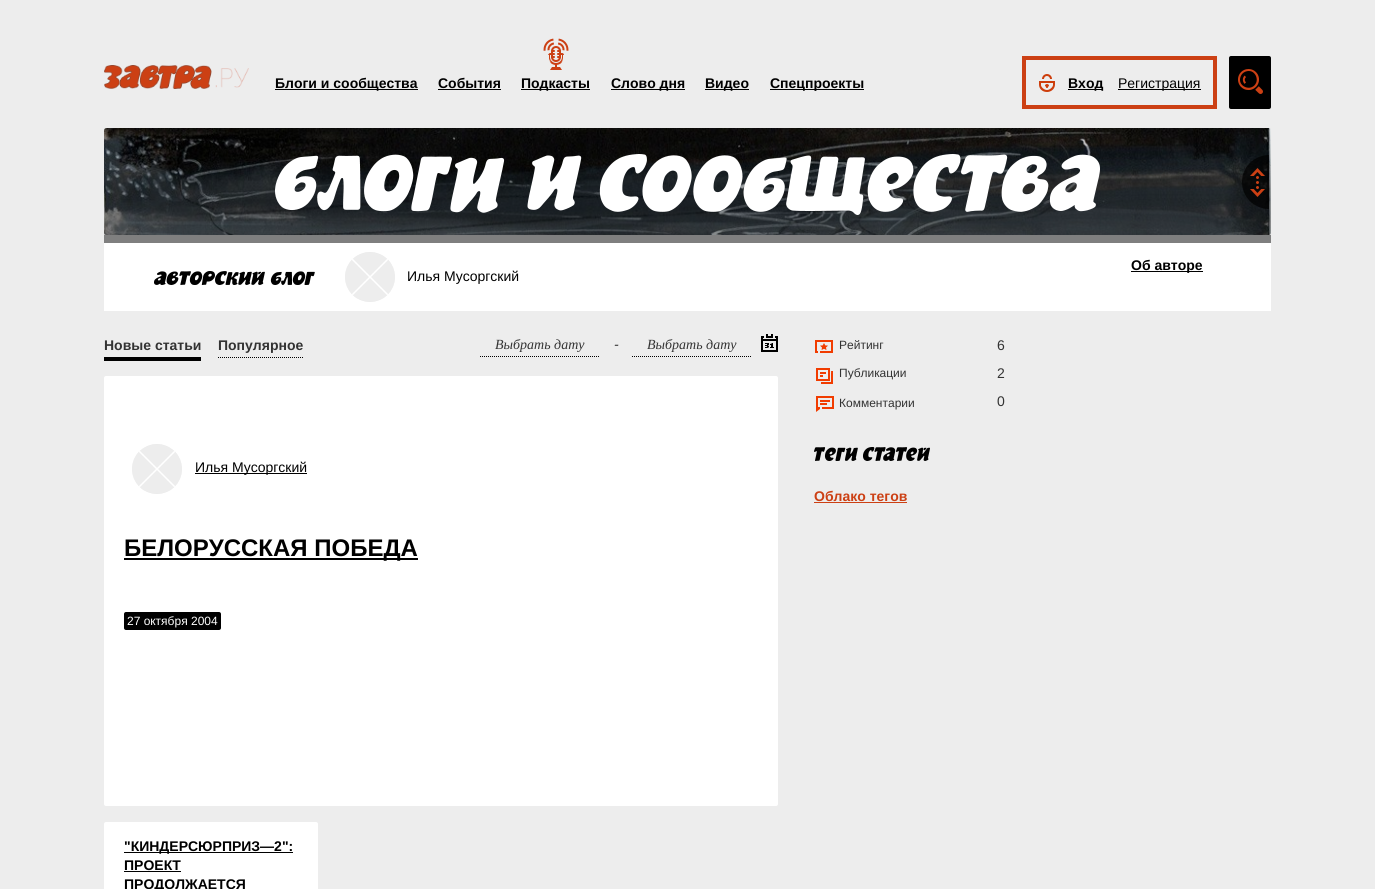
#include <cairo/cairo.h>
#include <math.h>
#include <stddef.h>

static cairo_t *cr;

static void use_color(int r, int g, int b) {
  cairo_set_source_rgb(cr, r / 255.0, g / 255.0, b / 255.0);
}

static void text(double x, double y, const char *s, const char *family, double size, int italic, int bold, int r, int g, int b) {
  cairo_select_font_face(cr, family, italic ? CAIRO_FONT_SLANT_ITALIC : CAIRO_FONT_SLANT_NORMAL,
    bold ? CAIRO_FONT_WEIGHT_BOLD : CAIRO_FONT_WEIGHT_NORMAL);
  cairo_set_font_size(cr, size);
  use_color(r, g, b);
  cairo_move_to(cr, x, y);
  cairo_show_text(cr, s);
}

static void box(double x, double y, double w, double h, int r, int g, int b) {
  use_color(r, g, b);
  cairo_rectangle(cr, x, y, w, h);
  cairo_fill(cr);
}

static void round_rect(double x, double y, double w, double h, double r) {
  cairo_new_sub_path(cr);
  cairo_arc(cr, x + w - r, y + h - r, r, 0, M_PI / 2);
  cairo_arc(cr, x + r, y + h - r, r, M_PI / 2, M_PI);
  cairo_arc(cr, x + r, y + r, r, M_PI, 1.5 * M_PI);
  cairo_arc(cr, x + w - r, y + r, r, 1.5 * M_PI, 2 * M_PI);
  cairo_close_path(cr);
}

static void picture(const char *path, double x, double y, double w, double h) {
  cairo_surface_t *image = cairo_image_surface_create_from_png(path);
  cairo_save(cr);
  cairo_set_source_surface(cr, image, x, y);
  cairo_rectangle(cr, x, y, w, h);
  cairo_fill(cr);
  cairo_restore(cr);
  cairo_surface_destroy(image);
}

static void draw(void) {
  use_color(237, 237, 237);
  cairo_paint(cr);
  picture("img_01.png", 104, 65, 145, 24);
  box(275, 89, 143, 1, 0, 0, 0);
  box(438, 89, 63, 1, 0, 0, 0);
  picture("img_02.png", 543, 38, 26, 32);
  box(521, 89, 69, 1, 0, 0, 0);
  box(611, 89, 74, 1, 0, 0, 0);
  box(705, 89, 44, 1, 0, 0, 0);
  box(770, 89, 94, 1, 0, 0, 0);
  cairo_rectangle(cr, 1024, 58, 191, 49);
  use_color(204, 64, 20);
  cairo_set_line_width(cr, 4);
  cairo_stroke(cr);
  picture("img_03.png", 1039, 74, 16, 18);
  box(1068, 89, 35, 1, 0, 0, 0);
  box(1118, 89, 83, 1, 0, 0, 0);
  round_rect(1229, 56, 42, 53, 2);
  cairo_fill(cr);
  picture("img_04.png", 1238, 69, 25, 25);
  picture("img_05.png", 104, 128, 1167, 107);
  picture("img_06.png", 104, 128, 1167, 107);
  picture("img_07.png", 275, 154, 825, 61);
  picture("img_08.png", 1242, 155, 27, 54);
  box(104, 243, 1167, 68, 255, 255, 255);
  box(104, 235, 1167, 8, 127, 127, 127);
  box(1131, 271, 72, 1, 0, 0, 0);
  picture("img_09.png", 154, 271, 161, 14);
  use_color(242, 242, 242);
  cairo_arc(cr, 370, 277, 26.5, 0, 2 * M_PI);
  cairo_fill_preserve(cr);
  use_color(255, 255, 255);
  cairo_set_line_width(cr, 3);
  cairo_stroke(cr);
  picture("img_10.png", 345, 252, 50, 50);
  box(104, 357, 97, 4, 0, 0, 0);
  cairo_new_path(cr);
  cairo_move_to(cr, 218, 357.5);
  cairo_line_to(cr, 303, 357.5);
  cairo_set_line_width(cr, 1);
  cairo_set_dash(cr, (double[]){1, 1}, 2, 0);
  cairo_stroke(cr);
  cairo_new_path(cr);
  cairo_move_to(cr, 480, 356.5);
  cairo_line_to(cr, 600, 356.5);
  cairo_stroke(cr);
  cairo_new_path(cr);
  cairo_move_to(cr, 632, 356.5);
  cairo_line_to(cr, 752, 356.5);
  cairo_stroke(cr);
  picture("img_11.png", 761, 334, 17, 18);
  use_color(255, 255, 255);
  round_rect(104, 376, 674, 430, 2);
  cairo_fill(cr);
  use_color(242, 242, 242);
  cairo_arc(cr, 157, 469, 26.5, 0, 2 * M_PI);
  cairo_fill_preserve(cr);
  use_color(255, 255, 255);
  cairo_set_line_width(cr, 3);
  cairo_set_dash(cr, NULL, 0, 0);
  cairo_stroke(cr);
  picture("img_12.png", 132, 444, 50, 50);
  box(195, 473, 112, 1, 0, 0, 0);
  box(124, 558, 294, 2, 0, 0, 0);
  round_rect(124, 612, 97, 18, 2);
  cairo_fill(cr);
  use_color(255, 255, 255);
  round_rect(104, 822, 214, 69, 2);
  cairo_fill(cr);
  box(124, 852, 169, 1, 0, 0, 0);
  box(124, 871, 57, 1, 0, 0, 0);
  picture("img_13.png", 815, 340, 18, 13);
  picture("img_14.png", 816, 368, 17, 16);
  picture("img_15.png", 816, 396, 18, 16);
  picture("img_16.png", 814, 447, 116, 14);
  box(814, 502, 93, 1, 204, 64, 20);
  text(275, 88, "Блоги и сообщества", "Liberation Sans", 14, 0, 1, 0, 0, 0);
  text(438, 88, "События", "Liberation Sans", 14, 0, 1, 0, 0, 0);
  text(521, 88, "Подкасты", "Liberation Sans", 14, 0, 1, 0, 0, 0);
  text(611, 88, "Слово дня", "Liberation Sans", 14, 0, 1, 0, 0, 0);
  text(705, 88, "Видео", "Liberation Sans", 14, 0, 1, 0, 0, 0);
  text(770, 88, "Спецпроекты", "Liberation Sans", 14, 0, 1, 0, 0, 0);
  text(1068, 88, "Вход", "Liberation Sans", 14, 0, 1, 0, 0, 0);
  text(1118, 88, "Регистрация", "Liberation Sans", 14, 0, 0, 0, 0, 0);
  text(1131, 270, "Об авторе", "Liberation Sans", 14, 0, 1, 0, 0, 0);
  text(407, 281, "Илья Мусоргский", "Liberation Sans", 14, 0, 0, 0, 0, 0);
  text(104, 350, "Новые статьи", "Liberation Sans", 14, 0, 1, 51, 51, 51);
  text(218, 350, "Популярное", "Liberation Sans", 14, 0, 1, 51, 51, 51);
  text(495, 349, "Выбрать дату", "Liberation Serif", 14, 1, 0, 51, 51, 51);
  text(614, 349, "-", "Liberation Sans", 14, 1, 0, 51, 51, 51);
  text(647, 349, "Выбрать дату", "Liberation Serif", 14, 1, 0, 51, 51, 51);
  text(195, 472, "Илья Мусоргский", "Liberation Sans", 14, 0, 0, 0, 0, 0);
  text(124, 556, "БЕЛОРУССКАЯ ПОБЕДА", "Liberation Sans", 24, 0, 1, 0, 0, 0);
  text(127, 625, "27 октября 2004", "Liberation Sans", 12, 0, 0, 255, 255, 255);
  text(124, 851, "\"КИНДЕРСЮРПРИЗ—2\":", "Liberation Sans", 14, 0, 1, 0, 0, 0);
  text(124, 870, "ПРОЕКТ", "Liberation Sans", 14, 0, 1, 0, 0, 0);
  text(124, 889, "ПРОДОЛЖАЕТСЯ", "Liberation Sans", 14, 0, 1, 0, 0, 0);
  text(839, 349, "Рейтинг", "Liberation Sans", 12, 0, 0, 51, 51, 51);
  text(997, 350, "6", "Liberation Sans", 14, 0, 0, 51, 51, 51);
  text(839, 377, "Публикации", "Liberation Sans", 12, 0, 0, 51, 51, 51);
  text(997, 378, "2", "Liberation Sans", 14, 0, 0, 51, 51, 51);
  text(839, 407, "Комментарии", "Liberation Sans", 12, 0, 0, 51, 51, 51);
  text(997, 406, "0", "Liberation Sans", 14, 0, 0, 51, 51, 51);
  text(814, 501, "Облако тегов", "Liberation Sans", 14, 0, 1, 204, 64, 20);
}

int main(void) {
  cairo_surface_t *surface = cairo_image_surface_create(CAIRO_FORMAT_RGB24, 1375, 889);
  cr = cairo_create(surface);
  cairo_font_options_t *options = cairo_font_options_create();
  cairo_font_options_set_hint_metrics(options, CAIRO_HINT_METRICS_OFF);
  cairo_font_options_set_hint_style(options, CAIRO_HINT_STYLE_NONE);
  cairo_set_font_options(cr, options);
  cairo_set_miter_limit(cr, 4);
  draw();
  cairo_surface_write_to_png(surface, "out.png");
  cairo_font_options_destroy(options);
  cairo_destroy(cr);
  cairo_surface_destroy(surface);
  return 0;
}
